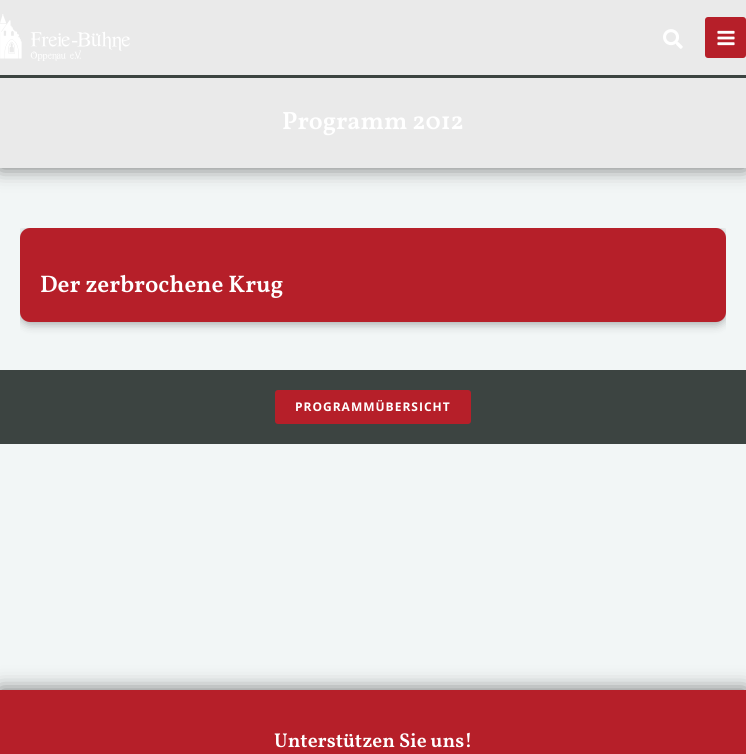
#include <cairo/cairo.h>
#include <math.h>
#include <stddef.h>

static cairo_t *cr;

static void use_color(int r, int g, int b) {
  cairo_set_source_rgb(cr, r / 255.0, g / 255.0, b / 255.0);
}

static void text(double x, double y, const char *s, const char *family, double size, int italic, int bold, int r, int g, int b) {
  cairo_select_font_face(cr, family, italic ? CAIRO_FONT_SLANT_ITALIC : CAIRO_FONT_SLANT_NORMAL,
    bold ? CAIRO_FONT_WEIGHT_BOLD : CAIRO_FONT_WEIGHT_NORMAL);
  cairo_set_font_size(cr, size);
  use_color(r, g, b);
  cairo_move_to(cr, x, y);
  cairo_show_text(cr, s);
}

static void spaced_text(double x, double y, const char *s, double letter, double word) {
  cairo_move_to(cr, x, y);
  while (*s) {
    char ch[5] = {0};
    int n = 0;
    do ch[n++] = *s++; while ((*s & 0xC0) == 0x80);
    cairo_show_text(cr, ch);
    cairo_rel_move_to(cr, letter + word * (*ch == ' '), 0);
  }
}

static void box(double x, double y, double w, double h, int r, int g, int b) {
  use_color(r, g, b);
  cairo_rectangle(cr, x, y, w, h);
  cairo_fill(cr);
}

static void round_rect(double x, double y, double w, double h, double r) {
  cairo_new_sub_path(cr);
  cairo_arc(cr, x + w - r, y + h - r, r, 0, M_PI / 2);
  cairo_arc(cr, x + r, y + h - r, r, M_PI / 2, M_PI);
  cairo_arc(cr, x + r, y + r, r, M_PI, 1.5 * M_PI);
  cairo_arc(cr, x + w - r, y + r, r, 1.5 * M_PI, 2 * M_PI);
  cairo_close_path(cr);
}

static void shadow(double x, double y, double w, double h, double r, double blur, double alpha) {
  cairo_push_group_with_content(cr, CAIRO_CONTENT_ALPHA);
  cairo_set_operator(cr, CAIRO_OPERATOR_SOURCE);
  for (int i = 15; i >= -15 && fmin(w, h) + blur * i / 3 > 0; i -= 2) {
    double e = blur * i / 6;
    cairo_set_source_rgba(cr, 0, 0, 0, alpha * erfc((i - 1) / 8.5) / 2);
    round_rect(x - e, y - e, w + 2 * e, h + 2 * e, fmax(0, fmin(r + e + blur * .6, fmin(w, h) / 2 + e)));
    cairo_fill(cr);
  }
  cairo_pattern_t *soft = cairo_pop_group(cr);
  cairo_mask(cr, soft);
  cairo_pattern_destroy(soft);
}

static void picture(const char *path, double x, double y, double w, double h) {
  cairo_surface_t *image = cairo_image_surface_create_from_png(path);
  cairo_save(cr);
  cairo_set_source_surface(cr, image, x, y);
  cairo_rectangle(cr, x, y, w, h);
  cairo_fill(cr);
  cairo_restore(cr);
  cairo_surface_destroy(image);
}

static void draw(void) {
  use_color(242, 246, 246);
  cairo_paint(cr);
  use_color(0, 0, 0);
  shadow(0, 0, 746, 168, 0, 10, 0.54);
  box(0, 0, 746, 168, 234, 234, 234);
  box(0, 75, 746, 3, 60, 68, 65);
  picture("img_01.png", 0, 14, 130, 47);
  picture("img_02.png", 663, 29, 20, 20);
  use_color(182, 31, 41);
  round_rect(705, 17, 41, 41, 3);
  cairo_fill(cr);
  picture("img_03.png", 717, 30, 18, 16);
  cairo_save(cr);
  cairo_rectangle(cr, 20, 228, 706, 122);
  cairo_clip(cr);
  use_color(0, 0, 0);
  shadow(20, 230, 706, 94, 10, 5, 0.33);
  cairo_restore(cr);
  round_rect(20, 228, 706, 94, 10);
  cairo_fill(cr);
  box(0, 370, 746, 74, 60, 68, 65);
  use_color(182, 31, 41);
  round_rect(276, 391, 194, 32, 2);
  cairo_fill_preserve(cr);
  cairo_stroke(cr);
  use_color(0, 0, 0);
  shadow(0, 690, 746, 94, 0, 10, 0.54);
  box(0, 690, 746, 64, 182, 31, 41);
  text(282, 129, "Programm 2012", "Vollkorn SemiBold", 25, 0, 0, 255, 255, 255);
  text(40, 292, "Der zerbrochene Krug", "Vollkorn SemiBold", 24, 0, 0, 255, 255, 255);
  cairo_select_font_face(cr, "Open Sans", CAIRO_FONT_SLANT_NORMAL, CAIRO_FONT_WEIGHT_BOLD);
  cairo_set_font_size(cr, 12);
  spaced_text(295, 411, "PROGRAMMÜBERSICHT", 1, 0);
  text(274, 747, "Unterstützen Sie uns!", "Vollkorn SemiBold", 20, 0, 0, 255, 255, 255);
}

int main(void) {
  cairo_surface_t *surface = cairo_image_surface_create(CAIRO_FORMAT_RGB24, 746, 754);
  cr = cairo_create(surface);
  cairo_font_options_t *options = cairo_font_options_create();
  cairo_font_options_set_hint_metrics(options, CAIRO_HINT_METRICS_OFF);
  cairo_font_options_set_hint_style(options, CAIRO_HINT_STYLE_NONE);
  cairo_set_font_options(cr, options);
  cairo_set_miter_limit(cr, 4);
  draw();
  cairo_surface_write_to_png(surface, "out.png");
  cairo_font_options_destroy(options);
  cairo_destroy(cr);
  cairo_surface_destroy(surface);
  return 0;
}
